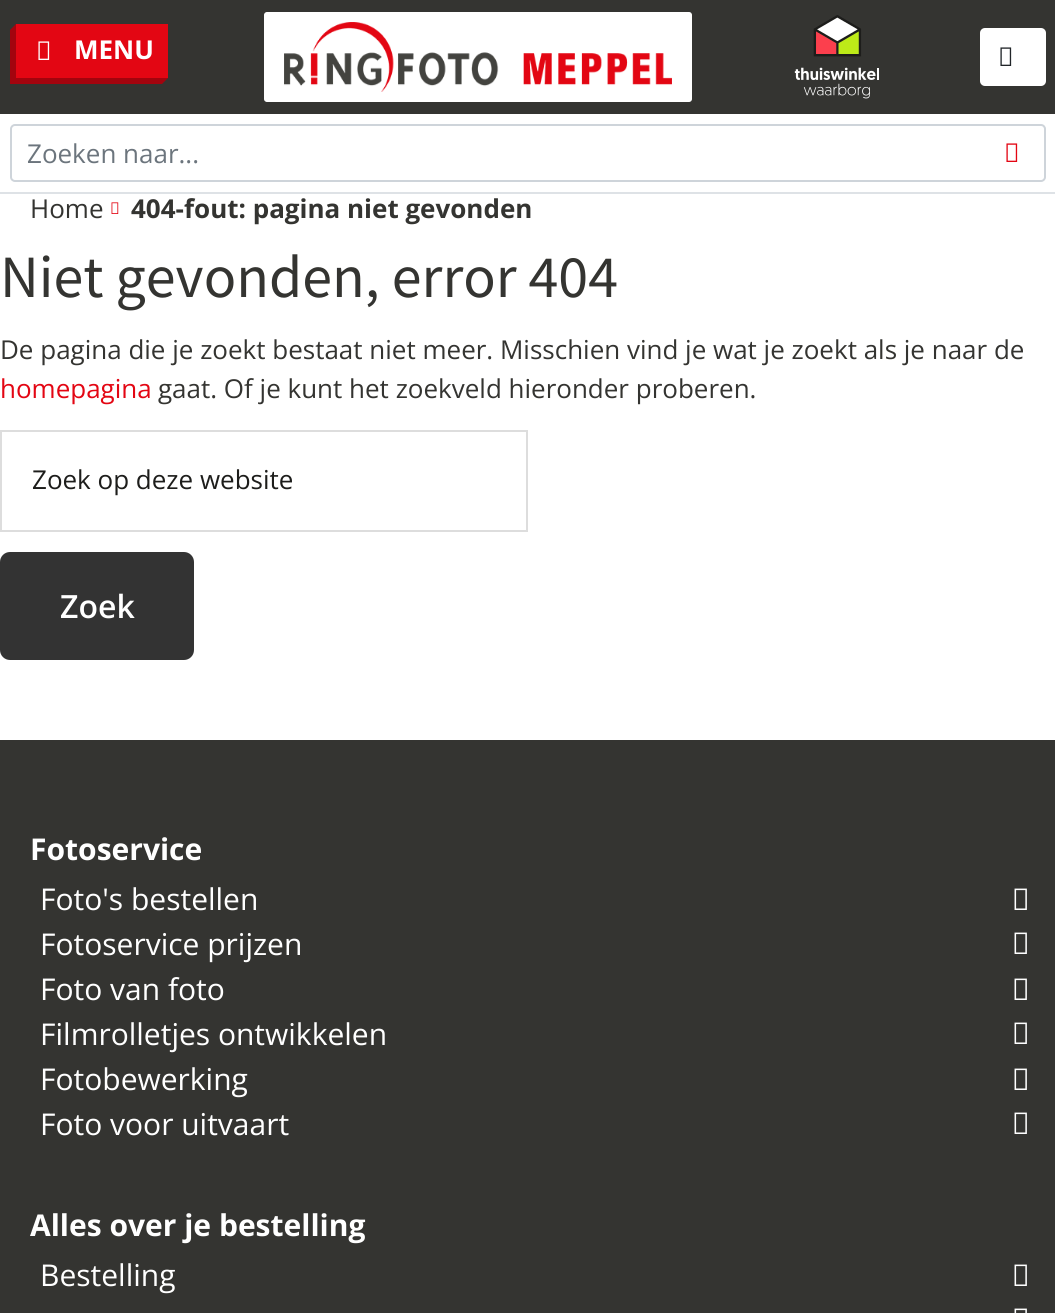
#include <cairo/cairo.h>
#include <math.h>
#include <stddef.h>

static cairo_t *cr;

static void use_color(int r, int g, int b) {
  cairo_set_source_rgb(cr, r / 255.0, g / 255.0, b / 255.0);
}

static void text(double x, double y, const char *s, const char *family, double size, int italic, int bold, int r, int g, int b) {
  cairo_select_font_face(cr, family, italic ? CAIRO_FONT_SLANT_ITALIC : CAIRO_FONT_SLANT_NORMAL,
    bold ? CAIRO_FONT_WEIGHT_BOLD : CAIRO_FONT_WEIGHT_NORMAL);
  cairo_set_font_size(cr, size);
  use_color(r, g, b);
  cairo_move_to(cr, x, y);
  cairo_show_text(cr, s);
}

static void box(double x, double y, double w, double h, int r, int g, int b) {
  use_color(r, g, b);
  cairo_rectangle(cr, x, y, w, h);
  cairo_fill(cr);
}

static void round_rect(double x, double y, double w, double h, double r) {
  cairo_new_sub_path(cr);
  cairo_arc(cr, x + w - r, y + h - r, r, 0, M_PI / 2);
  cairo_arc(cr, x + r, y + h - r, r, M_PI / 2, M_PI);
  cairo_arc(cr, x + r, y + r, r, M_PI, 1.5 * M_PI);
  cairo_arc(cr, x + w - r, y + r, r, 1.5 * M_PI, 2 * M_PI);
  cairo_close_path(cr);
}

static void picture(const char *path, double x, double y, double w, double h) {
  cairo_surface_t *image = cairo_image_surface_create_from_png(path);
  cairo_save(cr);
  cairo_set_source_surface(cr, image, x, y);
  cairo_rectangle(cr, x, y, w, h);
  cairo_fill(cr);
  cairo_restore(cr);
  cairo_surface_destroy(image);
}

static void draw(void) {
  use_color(255, 255, 255);
  cairo_paint(cr);
  box(0, 0, 1055, 114, 52, 52, 49);
  use_color(163, 4, 14);
  cairo_new_path(cr);
  cairo_move_to(cr, 16, 24);
  cairo_line_to(cr, 16, 36);
  cairo_line_to(cr, 10, 30);
  cairo_close_path(cr);
  cairo_fill(cr);
  box(10, 30, 6, 54, 163, 4, 14);
  box(16, 24, 152, 54, 227, 6, 19);
  picture("img_01.png", 38, 41, 12, 19);
  use_color(163, 4, 14);
  cairo_new_path(cr);
  cairo_move_to(cr, 156, 78);
  cairo_line_to(cr, 168, 78);
  cairo_line_to(cr, 162, 84);
  cairo_close_path(cr);
  cairo_fill(cr);
  box(10, 78, 152, 6, 163, 4, 14);
  use_color(255, 255, 255);
  round_rect(263, 11, 430, 92, 4);
  cairo_fill_preserve(cr);
  use_color(52, 52, 49);
  cairo_stroke(cr);
  picture("img_02.png", 284, 22, 388, 70);
  picture("img_03.png", 794, 15, 85, 84);
  use_color(255, 255, 255);
  round_rect(980, 28, 66, 58, 5);
  cairo_fill(cr);
  picture("img_04.png", 1000, 47, 12, 19);
  box(0, 192, 1055, 2, 222, 226, 230);
  round_rect(11, 125, 1034, 56, 4);
  use_color(206, 212, 218);
  cairo_stroke(cr);
  picture("img_05.png", 1006, 143, 12, 19);
  picture("img_06.png", 111, 202, 8, 12);
  cairo_rectangle(cr, 1, 431, 526, 100);
  use_color(221, 221, 221);
  cairo_stroke(cr);
  use_color(51, 51, 51);
  round_rect(0, 552, 194, 108, 10);
  cairo_fill(cr);
  box(0, 740, 1055, 573, 52, 52, 49);
  picture("img_07.png", 1014, 888, 13, 22);
  picture("img_07.png", 1014, 932, 13, 22);
  picture("img_07.png", 1014, 978, 13, 22);
  picture("img_07.png", 1014, 1022, 13, 22);
  picture("img_07.png", 1014, 1068, 13, 22);
  picture("img_07.png", 1014, 1112, 13, 22);
  picture("img_07.png", 1014, 1264, 13, 22);
  picture("img_08.png", 1014, 1308, 13, 5);
  text(74, 59, "MENU", "Open Sans", 26, 0, 1, 255, 255, 255);
  text(27, 163, "Zoeken naar...", "Open Sans", 26, 0, 0, 108, 117, 125);
  text(30, 218, "Home", "Open Sans", 26, 0, 0, 52, 52, 49);
  text(131, 218, "404-fout: pagina niet gevonden", "Open Sans", 26, 0, 1, 52, 52, 49);
  text(0, 297, "Niet gevonden, error 404", "Source Sans Pro", 60, 0, 0, 52, 52, 49);
  text(0, 359, "De pagina die je zoekt bestaat niet meer. Misschien vind je wat je zoekt als je naar de", "Open Sans", 26, 0, 0, 52, 52, 49);
  text(0, 398, "homepagina", "Open Sans", 26, 0, 0, 227, 6, 19);
  text(158, 398, "gaat. Of je kunt het zoekveld hieronder proberen.", "Open Sans", 26, 0, 0, 52, 52, 49);
  text(32, 489, "Zoek op deze website", "Open Sans", 26, 0, 0, 29, 29, 27);
  text(60, 618, "Zoek", "Open Sans SemiBold", 32, 0, 0, 255, 255, 255);
  text(30, 860, "Fotoservice", "Open Sans", 30, 0, 1, 255, 255, 255);
  text(40, 910, "Foto's bestellen", "Open Sans", 30, 0, 0, 255, 255, 255);
  text(40, 955, "Fotoservice prijzen", "Open Sans", 30, 0, 0, 255, 255, 255);
  text(40, 1000, "Foto van foto", "Open Sans", 30, 0, 0, 255, 255, 255);
  text(40, 1045, "Filmrolletjes ontwikkelen", "Open Sans", 30, 0, 0, 255, 255, 255);
  text(40, 1090, "Fotobewerking", "Open Sans", 30, 0, 0, 255, 255, 255);
  text(40, 1135, "Foto voor uitvaart", "Open Sans", 30, 0, 0, 255, 255, 255);
  text(30, 1236, "Alles over je bestelling", "Open Sans", 30, 0, 1, 255, 255, 255);
  text(40, 1286, "Bestelling", "Open Sans", 30, 0, 0, 255, 255, 255);
}

int main(void) {
  cairo_surface_t *surface = cairo_image_surface_create(CAIRO_FORMAT_RGB24, 1055, 1313);
  cr = cairo_create(surface);
  cairo_font_options_t *options = cairo_font_options_create();
  cairo_font_options_set_hint_metrics(options, CAIRO_HINT_METRICS_OFF);
  cairo_font_options_set_hint_style(options, CAIRO_HINT_STYLE_NONE);
  cairo_set_font_options(cr, options);
  cairo_set_miter_limit(cr, 4);
  draw();
  cairo_surface_write_to_png(surface, "out.png");
  cairo_font_options_destroy(options);
  cairo_destroy(cr);
  cairo_surface_destroy(surface);
  return 0;
}
